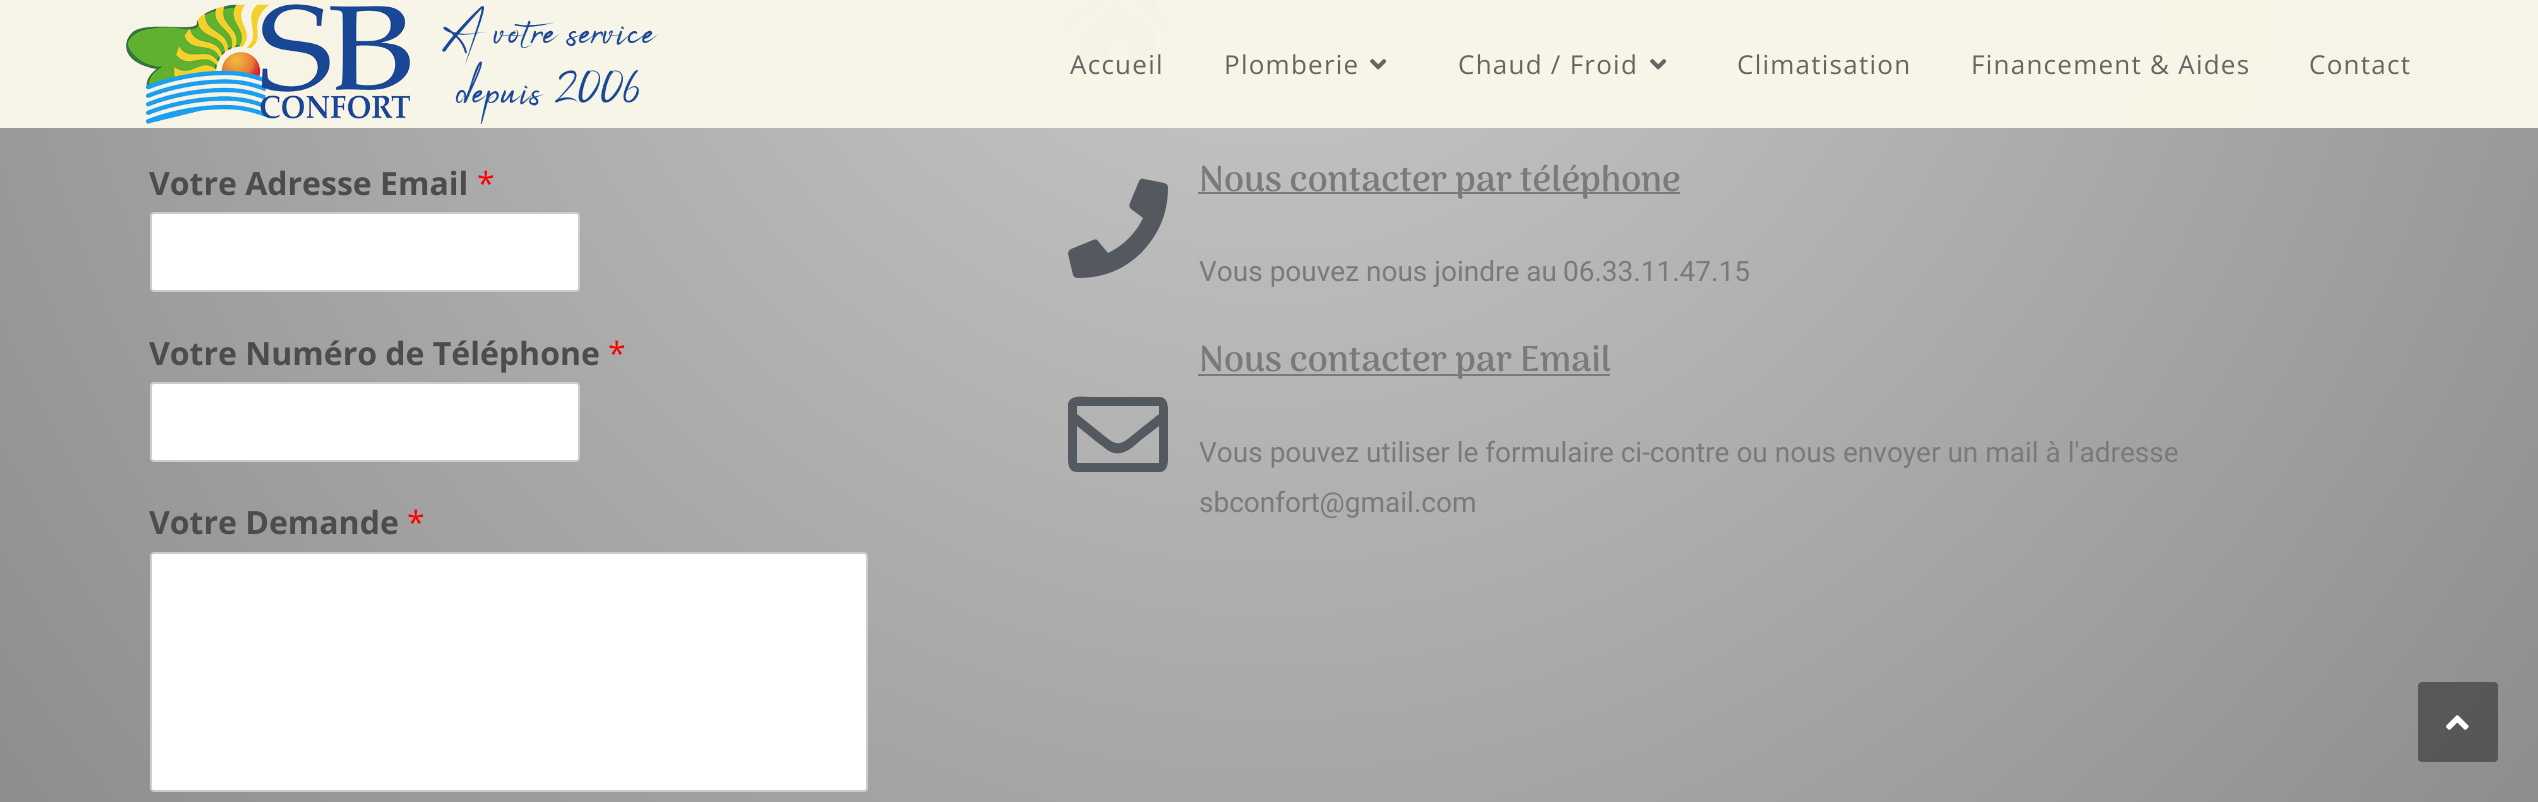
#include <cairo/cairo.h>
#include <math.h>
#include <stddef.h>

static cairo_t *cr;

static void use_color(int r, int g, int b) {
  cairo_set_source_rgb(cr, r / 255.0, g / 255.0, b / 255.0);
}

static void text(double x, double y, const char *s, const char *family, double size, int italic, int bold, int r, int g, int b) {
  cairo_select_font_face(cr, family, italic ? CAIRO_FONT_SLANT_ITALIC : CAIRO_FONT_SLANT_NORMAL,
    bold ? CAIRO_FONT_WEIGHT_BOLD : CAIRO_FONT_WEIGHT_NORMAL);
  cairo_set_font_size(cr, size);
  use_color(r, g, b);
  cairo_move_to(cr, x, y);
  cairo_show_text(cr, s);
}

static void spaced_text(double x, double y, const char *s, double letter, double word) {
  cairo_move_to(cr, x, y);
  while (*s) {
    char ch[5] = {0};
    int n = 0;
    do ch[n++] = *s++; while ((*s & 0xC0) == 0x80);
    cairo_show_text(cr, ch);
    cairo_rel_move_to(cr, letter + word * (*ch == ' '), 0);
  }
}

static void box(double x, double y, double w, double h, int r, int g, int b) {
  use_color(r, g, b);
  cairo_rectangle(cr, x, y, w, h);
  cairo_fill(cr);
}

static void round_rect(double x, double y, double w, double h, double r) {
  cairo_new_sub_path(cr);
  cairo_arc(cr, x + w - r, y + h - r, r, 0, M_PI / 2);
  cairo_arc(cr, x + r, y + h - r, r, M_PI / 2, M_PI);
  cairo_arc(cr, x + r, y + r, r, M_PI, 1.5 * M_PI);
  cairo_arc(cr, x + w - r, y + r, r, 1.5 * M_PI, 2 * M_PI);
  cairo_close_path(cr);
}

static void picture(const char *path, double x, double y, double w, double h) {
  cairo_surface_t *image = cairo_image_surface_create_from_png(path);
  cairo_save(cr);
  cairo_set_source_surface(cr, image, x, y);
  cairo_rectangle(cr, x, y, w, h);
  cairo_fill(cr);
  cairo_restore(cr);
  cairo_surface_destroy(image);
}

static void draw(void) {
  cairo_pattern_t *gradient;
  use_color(255, 255, 255);
  cairo_paint(cr);
  gradient = cairo_pattern_create_radial(0, 0, 0, 0, 0, 1);
  cairo_pattern_set_matrix(gradient, &(cairo_matrix_t){1.0 / 1795, 0, 0, 1.0 / 1819, -1.0 * 1269 / 1795, -1.0 * -226 / 1819});
  cairo_pattern_add_color_stop_rgba(gradient, 0, 0.969, 0.961, 0.906, 1);
  cairo_pattern_add_color_stop_rgba(gradient, 1, 0.965, 0.957, 0.902, 1);
  cairo_set_source(cr, gradient);
  cairo_pattern_destroy(gradient);
  cairo_rectangle(cr, 0, 0, 2538, 128);
  cairo_fill(cr);
  picture("img_01.png", 126, 4, 532, 120);
  picture("img_02.png", 1370, 59, 17, 11);
  picture("img_03.png", 1650, 59, 17, 11);
  gradient = cairo_pattern_create_radial(0, 0, 0, 0, 0, 1);
  cairo_pattern_set_matrix(gradient, &(cairo_matrix_t){1.0 / 1795, 0, 0, 1.0 / 1819, -1.0 * 1269 / 1795, -1.0 * -226 / 1819});
  cairo_pattern_add_color_stop_rgba(gradient, 0, 0.804, 0.804, 0.804, 1);
  cairo_pattern_add_color_stop_rgba(gradient, 1, 0.529, 0.529, 0.529, 1);
  cairo_set_source(cr, gradient);
  cairo_pattern_destroy(gradient);
  cairo_rectangle(cr, 0, 128, 2538, 674);
  cairo_fill(cr);
  use_color(255, 255, 255);
  round_rect(151, 213, 428, 78, 3);
  cairo_fill_preserve(cr);
  use_color(204, 204, 204);
  cairo_stroke(cr);
  use_color(255, 255, 255);
  round_rect(151, 383, 428, 78, 3);
  cairo_fill_preserve(cr);
  use_color(204, 204, 204);
  cairo_stroke(cr);
  use_color(255, 255, 255);
  round_rect(151, 553, 716, 238, 3);
  cairo_fill_preserve(cr);
  use_color(204, 204, 204);
  cairo_stroke(cr);
  picture("img_04.png", 1062, 0, 113, 67);
  use_color(84, 89, 95);
  cairo_new_path(cr);
  cairo_move_to(cr, 1164, 183);
  cairo_curve_to(cr, 1167, 184, 1168, 185, 1168, 188);
  cairo_curve_to(cr, 1168, 213, 1159, 234, 1142, 252);
  cairo_curve_to(cr, 1124, 270, 1103, 278, 1078, 278);
  cairo_curve_to(cr, 1075, 278, 1074, 277, 1073, 275);
  cairo_line_to(cr, 1068, 254);
  cairo_curve_to(cr, 1068, 252, 1069, 250, 1071, 249);
  cairo_line_to(cr, 1093, 240);
  cairo_curve_to(cr, 1095, 239, 1097, 239, 1098, 241);
  cairo_line_to(cr, 1108, 253);
  cairo_curve_to(cr, 1123, 246, 1136, 233, 1143, 218);
  cairo_line_to(cr, 1131, 209);
  cairo_curve_to(cr, 1129, 207, 1129, 205, 1130, 203);
  cairo_line_to(cr, 1139, 181);
  cairo_curve_to(cr, 1140, 179, 1142, 178, 1144, 179);
  cairo_close_path(cr);
  cairo_fill(cr);
  box(1198, 192, 482, 2, 122, 122, 122);
  use_color(84, 89, 95);
  cairo_new_path(cr);
  cairo_move_to(cr, 1159, 397);
  cairo_curve_to(cr, 1169, 397, 1168, 408, 1168, 416);
  cairo_line_to(cr, 1168, 453);
  cairo_curve_to(cr, 1168, 460, 1169, 470, 1161, 472);
  cairo_line_to(cr, 1077, 472);
  cairo_curve_to(cr, 1067, 472, 1068, 461, 1068, 453);
  cairo_line_to(cr, 1068, 404);
  cairo_curve_to(cr, 1070, 394, 1084, 397, 1091, 397);
  cairo_close_path(cr);
  cairo_move_to(cr, 1159, 406);
  cairo_line_to(cr, 1077, 406);
  cairo_line_to(cr, 1077, 414);
  cairo_line_to(cr, 1107, 438);
  cairo_curve_to(cr, 1116, 445, 1120, 445, 1129, 438);
  cairo_line_to(cr, 1159, 414);
  cairo_close_path(cr);
  cairo_move_to(cr, 1077, 463);
  cairo_line_to(cr, 1159, 463);
  cairo_line_to(cr, 1159, 426);
  cairo_line_to(cr, 1141, 440);
  cairo_curve_to(cr, 1133, 447, 1123, 457, 1111, 452);
  cairo_curve_to(cr, 1106, 450, 1103, 446, 1098, 443);
  cairo_line_to(cr, 1077, 426);
  cairo_close_path(cr);
  cairo_fill(cr);
  box(1198, 374, 412, 2, 122, 122, 122);
  cairo_set_source_rgba(cr, 0, 0, 0, 0.4);
  round_rect(2418, 682, 80, 80, 4);
  cairo_fill(cr);
  picture("img_05.png", 2446, 715, 23, 15);
  cairo_select_font_face(cr, "Open Sans", CAIRO_FONT_SLANT_NORMAL, CAIRO_FONT_WEIGHT_NORMAL);
  cairo_set_font_size(cr, 26);
  use_color(101, 101, 100);
  spaced_text(1070, 74, "Accueil", 1.25, 0);
  spaced_text(1224, 74, "Plomberie", 1.25, 0);
  spaced_text(1458, 74, "Chaud / Froid", 1.25, 0);
  spaced_text(1737, 74, "Climatisation", 1.25, 0);
  spaced_text(1971, 74, "Financement & Aides", 1.25, 0);
  spaced_text(2309, 74, "Contact", 1.25, 0);
  text(149, 195, "Votre Adresse Email", "Open Sans", 32, 0, 1, 76, 76, 76);
  text(477, 195, "*", "Open Sans", 32, 0, 0, 255, 0, 0);
  text(149, 365, "Votre Numéro de Téléphone", "Open Sans", 32, 0, 1, 76, 76, 76);
  text(608, 365, "*", "Open Sans", 32, 0, 0, 255, 0, 0);
  text(149, 534, "Votre Demande", "Open Sans", 32, 0, 1, 76, 76, 76);
  text(407, 534, "*", "Open Sans", 32, 0, 0, 255, 0, 0);
  text(1199, 191, "Nous contacter par téléphone", "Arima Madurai", 36, 0, 1, 122, 122, 122);
  text(1199, 281, "Vous pouvez nous joindre au", "Roboto", 28, 0, 0, 122, 122, 122);
  text(1563, 281, "06.33.11.47.15", "Roboto", 28, 0, 0, 122, 122, 122);
  text(1199, 371, "Nous contacter par Email", "Arima Madurai", 36, 0, 1, 122, 122, 122);
  text(1199, 462, "Vous pouvez utiliser le formulaire ci-contre ou nous envoyer un mail à l'adresse", "Roboto", 28, 0, 0, 122, 122, 122);
  text(1199, 512, "sbconfort@gmail.com", "Roboto", 28, 0, 0, 122, 122, 122);
}

int main(void) {
  cairo_surface_t *surface = cairo_image_surface_create(CAIRO_FORMAT_RGB24, 2538, 802);
  cr = cairo_create(surface);
  cairo_font_options_t *options = cairo_font_options_create();
  cairo_font_options_set_hint_metrics(options, CAIRO_HINT_METRICS_OFF);
  cairo_font_options_set_hint_style(options, CAIRO_HINT_STYLE_NONE);
  cairo_set_font_options(cr, options);
  cairo_set_miter_limit(cr, 4);
  draw();
  cairo_surface_write_to_png(surface, "out.png");
  cairo_font_options_destroy(options);
  cairo_destroy(cr);
  cairo_surface_destroy(surface);
  return 0;
}
